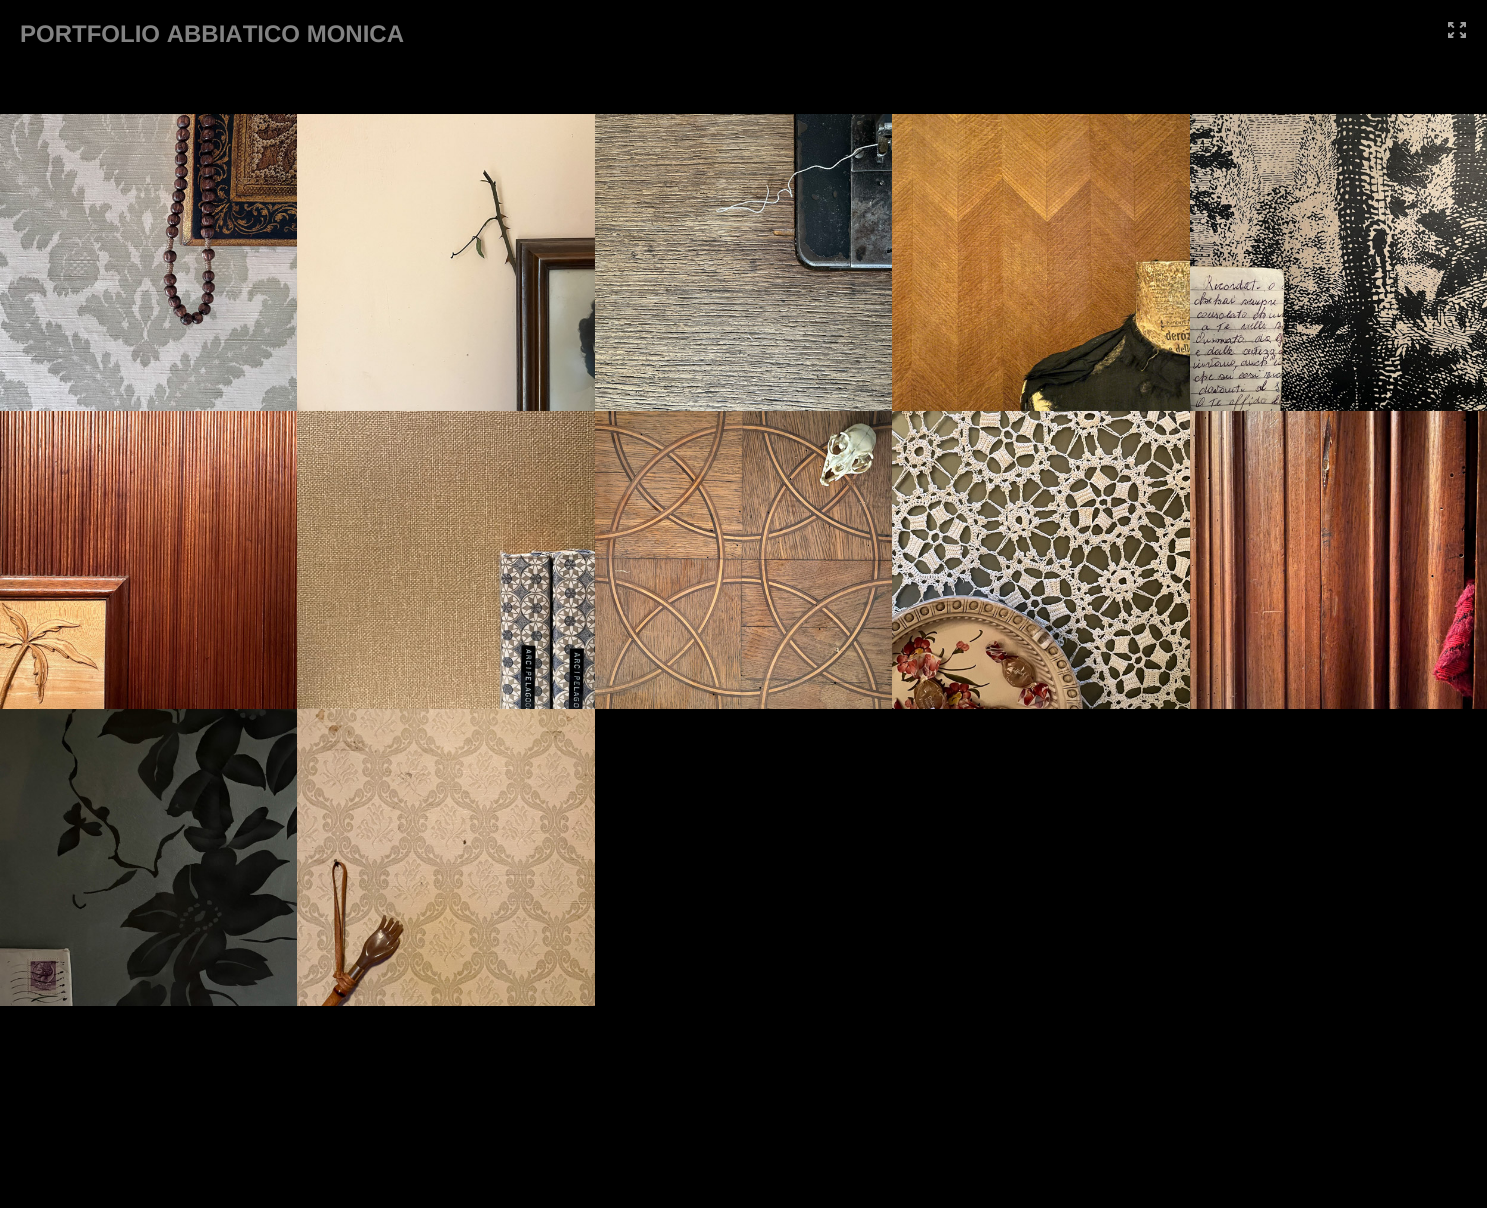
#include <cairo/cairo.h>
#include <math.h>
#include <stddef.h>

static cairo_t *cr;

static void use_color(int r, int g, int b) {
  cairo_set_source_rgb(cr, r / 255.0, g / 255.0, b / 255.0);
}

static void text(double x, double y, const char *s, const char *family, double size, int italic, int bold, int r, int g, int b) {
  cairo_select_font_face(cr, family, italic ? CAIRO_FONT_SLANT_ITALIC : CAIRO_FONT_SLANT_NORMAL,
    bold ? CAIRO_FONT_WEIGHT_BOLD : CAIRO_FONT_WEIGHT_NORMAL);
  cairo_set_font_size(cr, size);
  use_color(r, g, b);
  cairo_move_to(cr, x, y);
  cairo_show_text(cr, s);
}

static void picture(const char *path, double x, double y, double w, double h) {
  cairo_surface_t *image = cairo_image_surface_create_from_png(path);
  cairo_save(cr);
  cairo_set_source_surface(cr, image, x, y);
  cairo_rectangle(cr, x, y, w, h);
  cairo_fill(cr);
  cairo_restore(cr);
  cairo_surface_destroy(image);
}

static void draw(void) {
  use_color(0, 0, 0);
  cairo_paint(cr);
  picture("img_01.png", 1448, 22, 18, 16);
  picture("img_02.png", 0, 114, 297, 297);
  picture("img_03.png", 297, 114, 298, 297);
  picture("img_04.png", 595, 114, 297, 297);
  picture("img_05.png", 892, 114, 298, 297);
  picture("img_06.png", 1190, 114, 297, 297);
  picture("img_07.png", 0, 411, 297, 298);
  picture("img_08.png", 297, 411, 298, 298);
  picture("img_09.png", 595, 411, 297, 298);
  picture("img_10.png", 892, 411, 298, 298);
  picture("img_11.png", 1190, 411, 297, 298);
  picture("img_12.png", 0, 709, 297, 297);
  picture("img_13.png", 297, 709, 298, 297);
  text(20, 42, "PORTFOLIO ABBIATICO MONICA", "Liberation Sans", 24, 0, 1, 130, 130, 130);
}

int main(void) {
  cairo_surface_t *surface = cairo_image_surface_create(CAIRO_FORMAT_RGB24, 1487, 1208);
  cr = cairo_create(surface);
  cairo_font_options_t *options = cairo_font_options_create();
  cairo_font_options_set_hint_metrics(options, CAIRO_HINT_METRICS_OFF);
  cairo_font_options_set_hint_style(options, CAIRO_HINT_STYLE_NONE);
  cairo_set_font_options(cr, options);
  cairo_set_miter_limit(cr, 4);
  draw();
  cairo_surface_write_to_png(surface, "out.png");
  cairo_font_options_destroy(options);
  cairo_destroy(cr);
  cairo_surface_destroy(surface);
  return 0;
}
